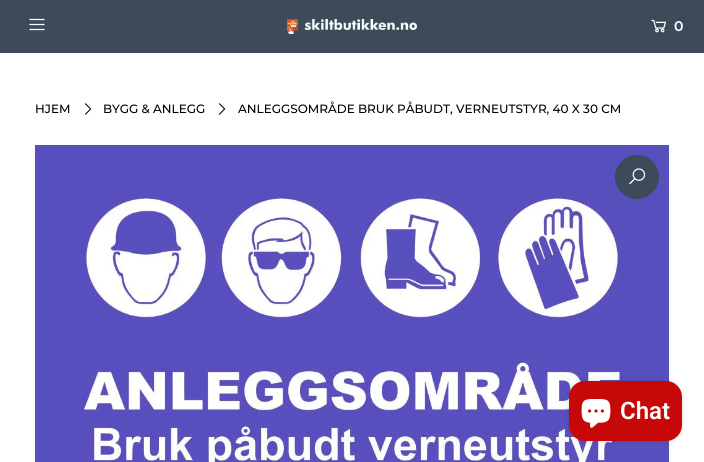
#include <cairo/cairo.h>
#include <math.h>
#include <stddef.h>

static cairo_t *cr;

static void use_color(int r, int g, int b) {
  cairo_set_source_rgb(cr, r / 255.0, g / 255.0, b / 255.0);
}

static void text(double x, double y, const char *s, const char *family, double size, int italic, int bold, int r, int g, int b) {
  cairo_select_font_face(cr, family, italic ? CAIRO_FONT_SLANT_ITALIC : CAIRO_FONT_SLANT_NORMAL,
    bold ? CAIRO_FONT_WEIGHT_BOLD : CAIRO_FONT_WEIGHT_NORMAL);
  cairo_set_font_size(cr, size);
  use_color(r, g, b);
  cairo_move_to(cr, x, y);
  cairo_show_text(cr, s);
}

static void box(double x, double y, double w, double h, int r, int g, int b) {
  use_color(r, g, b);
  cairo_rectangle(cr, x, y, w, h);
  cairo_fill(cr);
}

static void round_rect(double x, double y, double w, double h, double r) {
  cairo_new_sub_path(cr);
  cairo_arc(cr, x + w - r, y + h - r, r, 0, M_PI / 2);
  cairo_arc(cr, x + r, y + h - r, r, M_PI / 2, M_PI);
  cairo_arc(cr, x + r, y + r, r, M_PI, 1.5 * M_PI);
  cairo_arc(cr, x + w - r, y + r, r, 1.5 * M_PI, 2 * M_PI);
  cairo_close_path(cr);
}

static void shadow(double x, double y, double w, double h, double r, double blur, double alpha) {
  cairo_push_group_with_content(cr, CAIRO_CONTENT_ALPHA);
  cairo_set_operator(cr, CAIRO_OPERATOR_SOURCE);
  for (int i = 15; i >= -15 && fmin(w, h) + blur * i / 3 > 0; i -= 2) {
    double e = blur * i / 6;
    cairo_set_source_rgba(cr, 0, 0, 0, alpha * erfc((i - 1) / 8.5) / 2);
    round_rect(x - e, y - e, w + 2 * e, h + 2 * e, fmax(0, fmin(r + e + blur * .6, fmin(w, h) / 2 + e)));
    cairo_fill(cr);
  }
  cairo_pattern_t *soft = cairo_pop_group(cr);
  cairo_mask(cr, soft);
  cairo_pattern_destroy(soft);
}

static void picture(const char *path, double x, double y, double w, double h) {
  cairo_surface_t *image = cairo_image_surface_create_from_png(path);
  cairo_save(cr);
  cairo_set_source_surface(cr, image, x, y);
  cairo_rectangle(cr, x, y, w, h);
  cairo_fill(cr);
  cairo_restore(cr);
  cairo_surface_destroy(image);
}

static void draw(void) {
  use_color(255, 255, 255);
  cairo_paint(cr);
  box(0, 0, 704, 53, 61, 74, 90);
  picture("img_01.png", 29, 18, 16, 13);
  picture("img_02.png", 287, 19, 130, 15);
  picture("img_03.png", 651, 19, 16, 14);
  picture("img_04.png", 84, 103, 8, 12);
  picture("img_04.png", 218, 103, 8, 12);
  picture("img_05.png", 35, 145, 634, 317);
  cairo_arc(cr, 637, 177, 22, 0, 2 * M_PI);
  cairo_fill(cr);
  picture("img_06.png", 629, 168, 17, 17);
  use_color(0, 0, 0);
  shadow(569, 381, 113, 60, 16, 2.5, 0.15);
  use_color(198, 8, 8);
  round_rect(569, 381, 113, 60, 16);
  cairo_fill(cr);
  picture("img_07.png", 581, 399, 30, 29);
  text(674, 31, "0", "Montserrat SemiBold", 14, 0, 0, 255, 255, 255);
  text(35, 113, "HJEM", "Montserrat Medium", 12, 0, 0, 0, 0, 0);
  text(103, 113, "BYGG & ANLEGG", "Montserrat Medium", 12, 0, 0, 0, 0, 0);
  text(238, 113, "ANLEGGSOMRÅDE BRUK PÅBUDT, VERNEUTSTYR, 40 X 30 CM", "Montserrat Medium", 12, 0, 0, 0, 0, 0);
  text(620, 419, "Chat", "Roboto SemiBold", 24, 0, 0, 255, 255, 255);
}

int main(void) {
  cairo_surface_t *surface = cairo_image_surface_create(CAIRO_FORMAT_RGB24, 704, 462);
  cr = cairo_create(surface);
  cairo_font_options_t *options = cairo_font_options_create();
  cairo_font_options_set_hint_metrics(options, CAIRO_HINT_METRICS_OFF);
  cairo_font_options_set_hint_style(options, CAIRO_HINT_STYLE_NONE);
  cairo_set_font_options(cr, options);
  cairo_set_miter_limit(cr, 4);
  draw();
  cairo_surface_write_to_png(surface, "out.png");
  cairo_font_options_destroy(options);
  cairo_destroy(cr);
  cairo_surface_destroy(surface);
  return 0;
}
